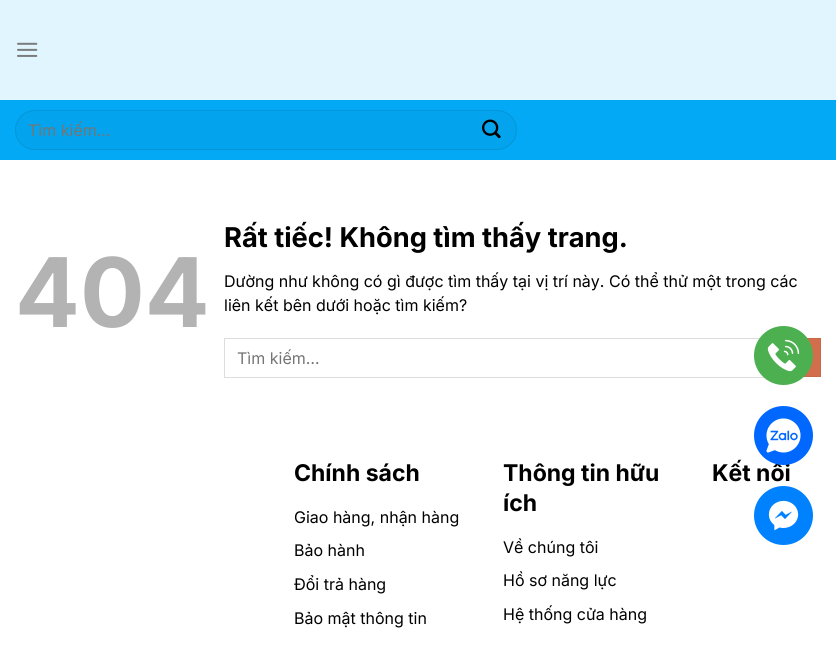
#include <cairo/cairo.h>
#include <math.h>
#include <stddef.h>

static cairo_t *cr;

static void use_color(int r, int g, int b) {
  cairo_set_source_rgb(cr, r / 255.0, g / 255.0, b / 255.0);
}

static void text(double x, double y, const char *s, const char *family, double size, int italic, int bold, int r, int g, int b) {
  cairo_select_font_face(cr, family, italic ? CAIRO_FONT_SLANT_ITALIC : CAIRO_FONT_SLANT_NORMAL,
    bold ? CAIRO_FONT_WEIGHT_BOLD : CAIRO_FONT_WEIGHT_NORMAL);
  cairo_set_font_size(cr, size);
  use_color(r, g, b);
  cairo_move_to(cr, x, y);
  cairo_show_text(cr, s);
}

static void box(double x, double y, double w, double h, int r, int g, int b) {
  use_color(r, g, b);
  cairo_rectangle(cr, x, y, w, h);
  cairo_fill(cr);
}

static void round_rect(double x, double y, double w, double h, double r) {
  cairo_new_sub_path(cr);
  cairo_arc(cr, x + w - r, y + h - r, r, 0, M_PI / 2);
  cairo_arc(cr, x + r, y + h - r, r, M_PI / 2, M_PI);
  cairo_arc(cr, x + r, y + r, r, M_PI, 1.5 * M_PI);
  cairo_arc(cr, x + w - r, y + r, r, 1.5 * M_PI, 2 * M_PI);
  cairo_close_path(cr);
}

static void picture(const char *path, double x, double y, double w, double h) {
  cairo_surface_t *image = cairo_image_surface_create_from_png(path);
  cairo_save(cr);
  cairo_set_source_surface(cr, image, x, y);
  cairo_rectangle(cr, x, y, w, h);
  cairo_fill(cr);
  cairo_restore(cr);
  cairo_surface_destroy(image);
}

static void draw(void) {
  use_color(255, 255, 255);
  cairo_paint(cr);
  box(0, 0, 836, 100, 225, 245, 254);
  picture("img_01.png", 17, 42, 21, 15);
  box(0, 100, 836, 60, 3, 169, 244);
  use_color(3, 164, 237);
  round_rect(15, 110, 502, 40, 20);
  cairo_fill(cr);
  round_rect(15.5, 110.5, 501, 39, 19.5);
  cairo_set_source_rgba(cr, 0, 0, 0, 0.09);
  cairo_set_line_width(cr, 1);
  cairo_stroke(cr);
  picture("img_02.png", 482, 119, 19, 20);
  cairo_rectangle(cr, 224.5, 338.5, 556, 39);
  use_color(221, 221, 221);
  cairo_stroke(cr);
  box(804, 339, 16, 37, 210, 110, 75);
  cairo_rectangle(cr, 781.5, 338.5, 39, 38);
  use_color(200, 105, 71);
  cairo_stroke(cr);
  use_color(76, 175, 80);
  cairo_arc(cr, 783.5, 355.5, 29.5, 0, 2 * M_PI);
  cairo_fill(cr);
  picture("img_03.png", 767, 339, 33, 33);
  use_color(0, 130, 255);
  cairo_arc(cr, 783.5, 515.5, 29.5, 0, 2 * M_PI);
  cairo_fill(cr);
  picture("img_05.png", 768, 500, 31, 31);
  text(28, 136, "Tìm kiếm…", "Inter", 16, 0, 0, 117, 117, 117);
  text(15, 327, "404", "Inter", 96, 0, 1, 179, 179, 179);
  text(224, 247, "Rất tiếc! Không tìm thấy trang.", "Inter", 27.25, 0, 1, 0, 0, 0);
  text(224, 287, "Dường như không có gì được tìm thấy tại vị trí này. Có thể thử một trong các", "Inter", 16, 0, 0, 0, 0, 0);
  text(224, 311, "liên kết bên dưới hoặc tìm kiếm?", "Inter", 16, 0, 0, 0, 0, 0);
  text(237, 364, "Tìm kiếm…", "Inter", 16, 0, 0, 117, 117, 117);
  text(294, 481, "Chính sách", "Inter", 23, 0, 1, 0, 0, 0);
  text(294, 523, "Giao hàng, nhận hàng", "Inter", 16, 0, 0, 0, 0, 0);
  text(294, 556, "Bảo hành", "Inter", 16, 0, 0, 0, 0, 0);
  text(294, 590, "Đổi trả hàng", "Inter", 16, 0, 0, 0, 0, 0);
  text(294, 624, "Bảo mật thông tin", "Inter", 16, 0, 0, 0, 0, 0);
  text(503, 481, "Thông tin hữu", "Inter", 23, 0, 1, 0, 0, 0);
  text(503, 511, "ích", "Inter", 23, 0, 1, 0, 0, 0);
  text(503, 553, "Về chúng tôi", "Inter", 16, 0, 0, 0, 0, 0);
  text(503, 586, "Hồ sơ năng lực", "Inter", 16, 0, 0, 0, 0, 0);
  text(503, 620, "Hệ thống cửa hàng", "Inter", 16, 0, 0, 0, 0, 0);
  text(712, 481, "Kết nối", "Inter", 23, 0, 1, 0, 0, 0);
  use_color(0, 104, 255);
  cairo_new_path(cr);
  cairo_arc(cr, 783.5, 435.5, 29.5, 0, 2 * M_PI);
  cairo_fill(cr);
  picture("img_04.png", 766, 418, 35, 35);
}

int main(void) {
  cairo_surface_t *surface = cairo_image_surface_create(CAIRO_FORMAT_RGB24, 836, 648);
  cr = cairo_create(surface);
  cairo_font_options_t *options = cairo_font_options_create();
  cairo_font_options_set_hint_metrics(options, CAIRO_HINT_METRICS_OFF);
  cairo_font_options_set_hint_style(options, CAIRO_HINT_STYLE_NONE);
  cairo_set_font_options(cr, options);
  cairo_set_miter_limit(cr, 4);
  draw();
  cairo_surface_write_to_png(surface, "out.png");
  cairo_font_options_destroy(options);
  cairo_destroy(cr);
  cairo_surface_destroy(surface);
  return 0;
}
